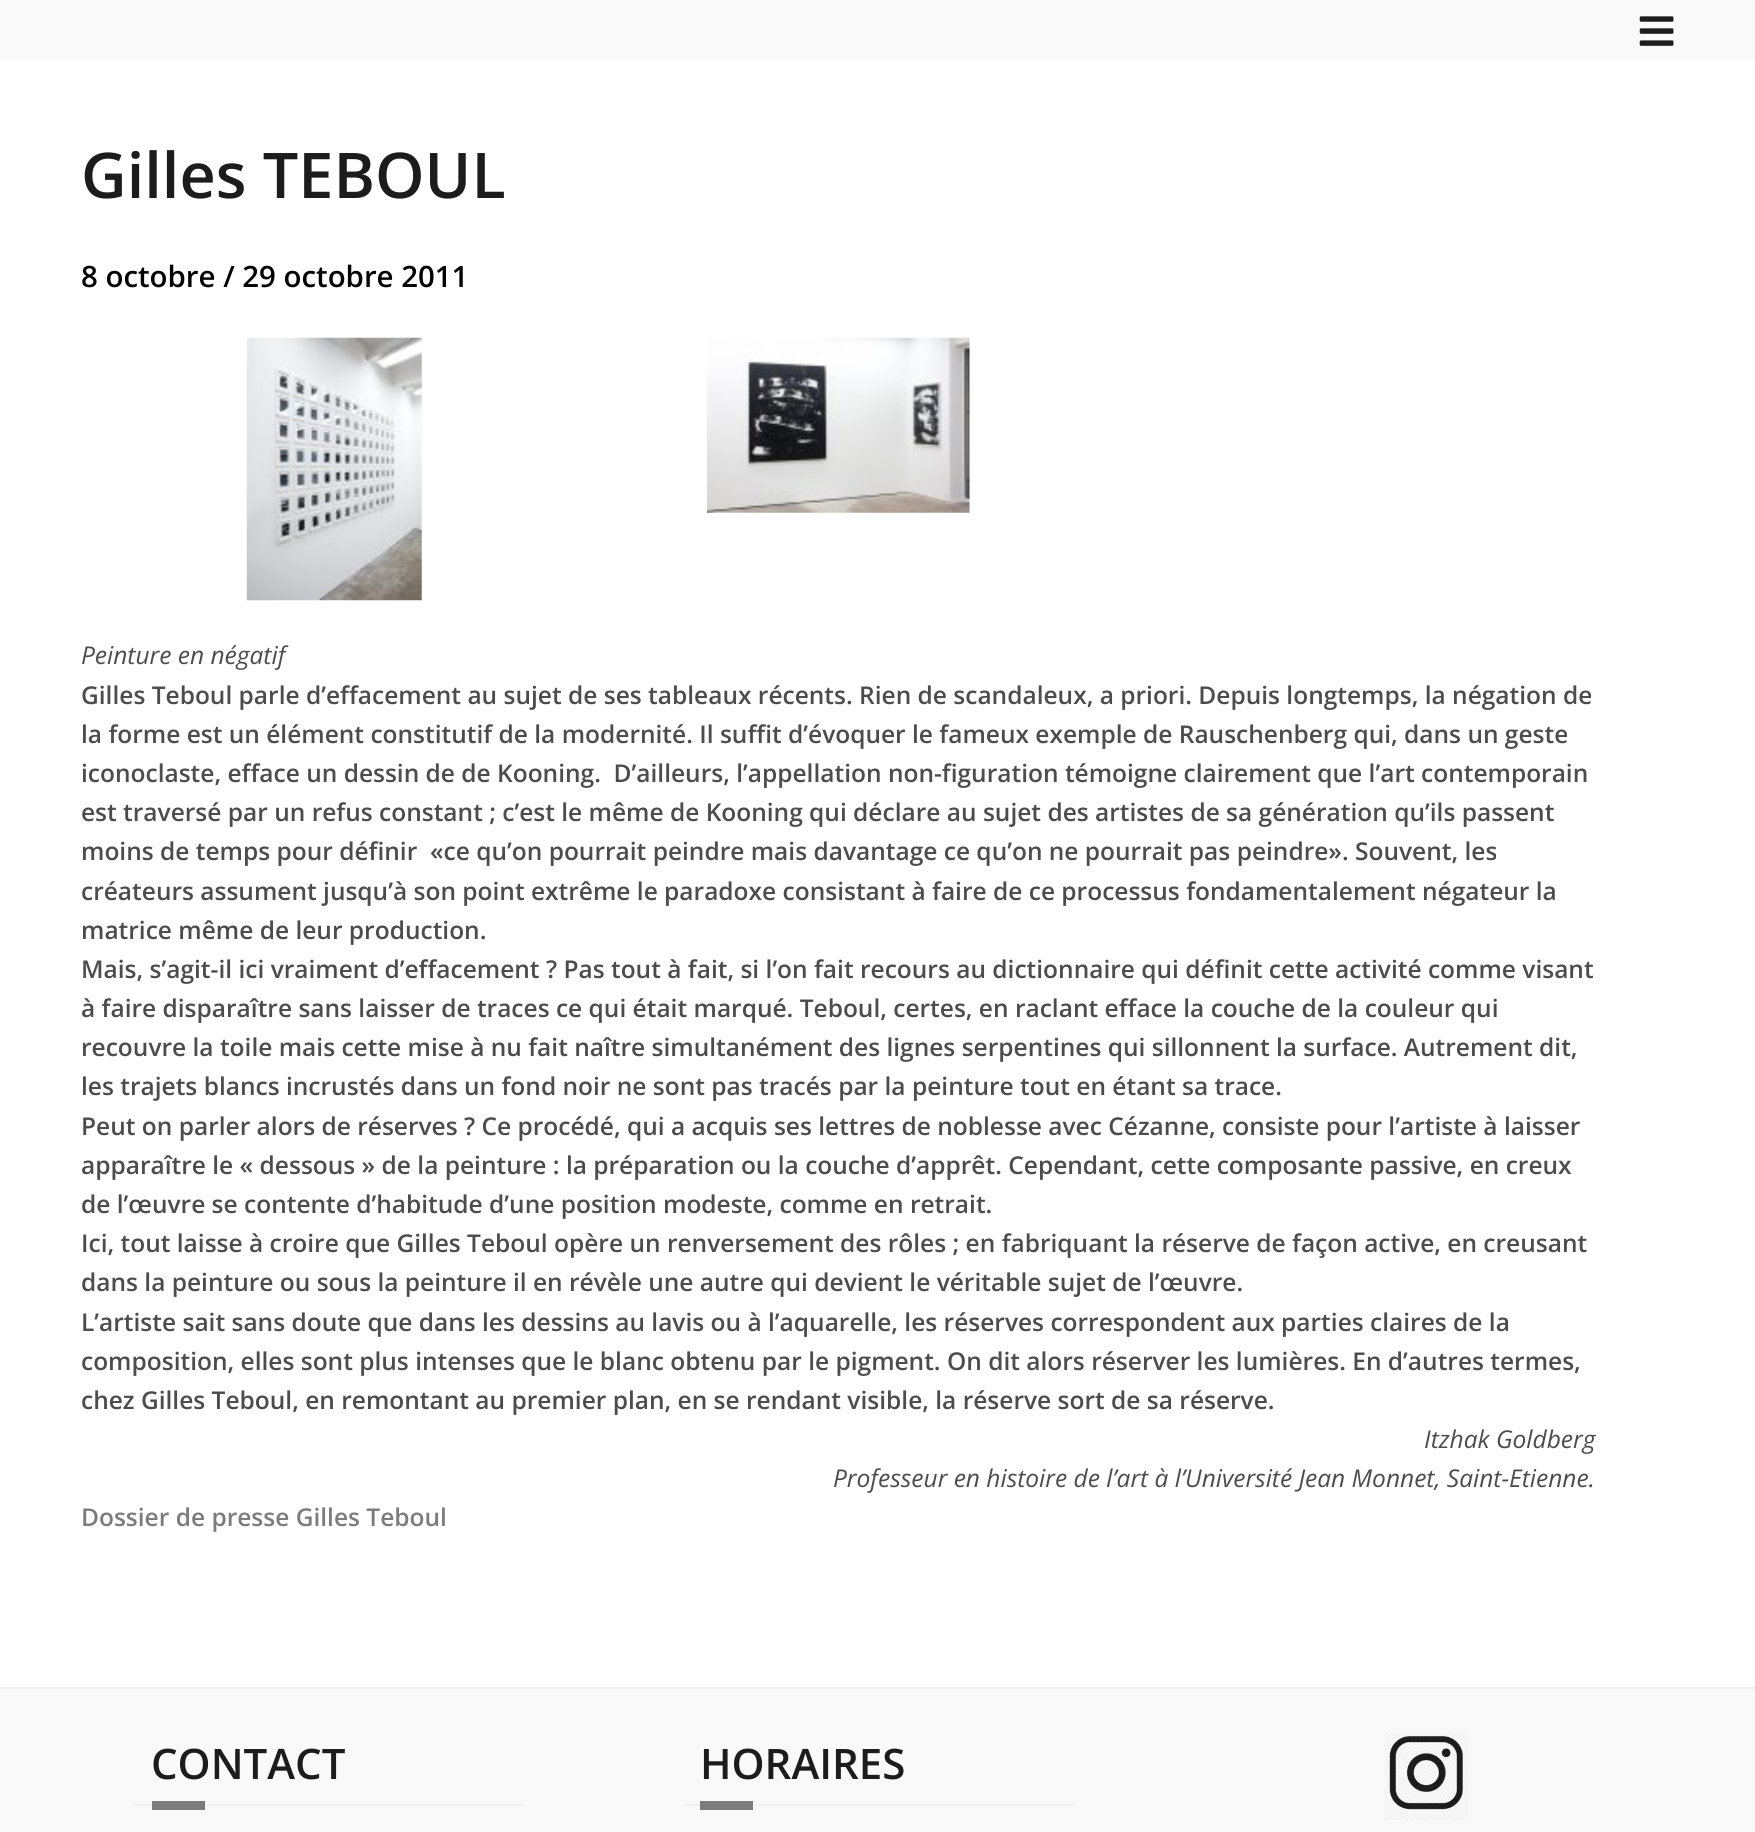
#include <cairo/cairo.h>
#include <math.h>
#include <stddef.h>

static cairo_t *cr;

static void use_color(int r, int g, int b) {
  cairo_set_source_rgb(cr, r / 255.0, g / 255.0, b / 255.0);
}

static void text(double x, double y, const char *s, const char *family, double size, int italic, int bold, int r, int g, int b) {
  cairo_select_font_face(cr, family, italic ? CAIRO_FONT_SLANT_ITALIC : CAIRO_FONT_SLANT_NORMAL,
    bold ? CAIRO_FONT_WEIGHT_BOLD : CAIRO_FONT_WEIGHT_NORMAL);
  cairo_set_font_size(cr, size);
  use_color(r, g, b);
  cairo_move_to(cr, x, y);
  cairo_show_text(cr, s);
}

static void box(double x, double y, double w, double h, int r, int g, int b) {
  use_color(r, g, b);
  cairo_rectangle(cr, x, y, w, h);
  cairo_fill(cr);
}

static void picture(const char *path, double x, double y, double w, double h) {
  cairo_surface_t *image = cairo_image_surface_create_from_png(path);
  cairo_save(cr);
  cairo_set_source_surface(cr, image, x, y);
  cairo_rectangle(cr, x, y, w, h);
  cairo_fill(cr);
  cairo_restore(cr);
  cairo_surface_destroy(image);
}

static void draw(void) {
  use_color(255, 255, 255);
  cairo_paint(cr);
  box(0, 0, 1755, 61, 249, 249, 249);
  picture("img_01.png", 1639, 16, 35, 30);
  picture("img_02.png", 246, 337, 176, 264);
  picture("img_03.png", 707, 337, 263, 176);
  box(0, 1689, 1755, 143, 249, 249, 249);
  box(0, 1687, 1755, 2, 241, 241, 241);
  box(135, 1804, 390, 2, 241, 241, 241);
  box(152, 1801, 53, 9, 124, 124, 124);
  box(683, 1804, 390, 2, 241, 241, 241);
  box(700, 1801, 53, 9, 124, 124, 124);
  picture("img_04.png", 1384, 1732, 84, 88);
  text(81, 198, "Gilles TEBOUL", "Open Sans SemiBold", 63, 0, 0, 28, 28, 28);
  text(81, 287, "8 octobre / 29 octobre 2011", "Open Sans SemiBold", 29.4, 0, 0, 0, 0, 0);
  text(81, 664, "Peinture en négatif", "Open Sans", 24.5, 1, 0, 76, 76, 76);
  text(81, 704, "Gilles Teboul parle d’effacement au sujet de ses tableaux récents. Rien de scandaleux, a priori. Depuis longtemps, la négation de", "Open Sans SemiBold", 24.5, 0, 0, 76, 76, 76);
  text(81, 743, "la forme est un élément constitutif de la modernité. Il suffit d’évoquer le fameux exemple de Rauschenberg qui, dans un geste", "Open Sans SemiBold", 24.5, 0, 0, 76, 76, 76);
  text(81, 782, "iconoclaste, efface un dessin de de Kooning.  D’ailleurs, l’appellation non-figuration témoigne clairement que l’art contemporain", "Open Sans SemiBold", 24.5, 0, 0, 76, 76, 76);
  text(81, 821, "est traversé par un refus constant ; c’est le même de Kooning qui déclare au sujet des artistes de sa génération qu’ils passent", "Open Sans SemiBold", 24.5, 0, 0, 76, 76, 76);
  text(81, 860, "moins de temps pour définir  «ce qu’on pourrait peindre mais davantage ce qu’on ne pourrait pas peindre». Souvent, les", "Open Sans SemiBold", 24.5, 0, 0, 76, 76, 76);
  text(81, 900, "créateurs assument jusqu’à son point extrême le paradoxe consistant à faire de ce processus fondamentalement négateur la", "Open Sans SemiBold", 24.5, 0, 0, 76, 76, 76);
  text(81, 939, "matrice même de leur production.", "Open Sans SemiBold", 24.5, 0, 0, 76, 76, 76);
  text(81, 978, "Mais, s’agit-il ici vraiment d’effacement ? Pas tout à fait, si l’on fait recours au dictionnaire qui définit cette activité comme visant", "Open Sans SemiBold", 24.5, 0, 0, 76, 76, 76);
  text(81, 1017, "à faire disparaître sans laisser de traces ce qui était marqué. Teboul, certes, en raclant efface la couche de la couleur qui", "Open Sans SemiBold", 24.5, 0, 0, 76, 76, 76);
  text(81, 1056, "recouvre la toile mais cette mise à nu fait naître simultanément des lignes serpentines qui sillonnent la surface. Autrement dit,", "Open Sans SemiBold", 24.5, 0, 0, 76, 76, 76);
  text(81, 1095, "les trajets blancs incrustés dans un fond noir ne sont pas tracés par la peinture tout en étant sa trace.", "Open Sans SemiBold", 24.5, 0, 0, 76, 76, 76);
  text(81, 1135, "Peut on parler alors de réserves ? Ce procédé, qui a acquis ses lettres de noblesse avec Cézanne, consiste pour l’artiste à laisser", "Open Sans SemiBold", 24.5, 0, 0, 76, 76, 76);
  text(81, 1174, "apparaître le « dessous » de la peinture : la préparation ou la couche d’apprêt. Cependant, cette composante passive, en creux", "Open Sans SemiBold", 24.5, 0, 0, 76, 76, 76);
  text(81, 1213, "de l’œuvre se contente d’habitude d’une position modeste, comme en retrait.", "Open Sans SemiBold", 24.5, 0, 0, 76, 76, 76);
  text(81, 1252, "Ici, tout laisse à croire que Gilles Teboul opère un renversement des rôles ; en fabriquant la réserve de façon active, en creusant", "Open Sans SemiBold", 24.5, 0, 0, 76, 76, 76);
  text(81, 1291, "dans la peinture ou sous la peinture il en révèle une autre qui devient le véritable sujet de l’œuvre.", "Open Sans SemiBold", 24.5, 0, 0, 76, 76, 76);
  text(81, 1331, "L’artiste sait sans doute que dans les dessins au lavis ou à l’aquarelle, les réserves correspondent aux parties claires de la", "Open Sans SemiBold", 24.5, 0, 0, 76, 76, 76);
  text(81, 1370, "composition, elles sont plus intenses que le blanc obtenu par le pigment. On dit alors réserver les lumières. En d’autres termes,", "Open Sans SemiBold", 24.5, 0, 0, 76, 76, 76);
  text(81, 1409, "chez Gilles Teboul, en remontant au premier plan, en se rendant visible, la réserve sort de sa réserve.", "Open Sans SemiBold", 24.5, 0, 0, 76, 76, 76);
  text(1424, 1448, "Itzhak Goldberg", "Open Sans", 24.5, 1, 0, 76, 76, 76);
  text(833, 1487, "Professeur en histoire de l’art à l’Université Jean Monnet, Saint-Etienne.", "Open Sans", 24.5, 1, 0, 76, 76, 76);
  text(81, 1526, "Dossier de presse Gilles Teboul", "Open Sans SemiBold", 24.5, 0, 0, 124, 124, 124);
  text(151, 1779, "CONTACT", "Open Sans SemiBold", 42, 0, 0, 28, 28, 28);
  text(700, 1779, "HORAIRES", "Open Sans SemiBold", 42, 0, 0, 28, 28, 28);
}

int main(void) {
  cairo_surface_t *surface = cairo_image_surface_create(CAIRO_FORMAT_RGB24, 1755, 1832);
  cr = cairo_create(surface);
  cairo_font_options_t *options = cairo_font_options_create();
  cairo_font_options_set_hint_metrics(options, CAIRO_HINT_METRICS_OFF);
  cairo_font_options_set_hint_style(options, CAIRO_HINT_STYLE_NONE);
  cairo_set_font_options(cr, options);
  cairo_set_miter_limit(cr, 4);
  draw();
  cairo_surface_write_to_png(surface, "out.png");
  cairo_font_options_destroy(options);
  cairo_destroy(cr);
  cairo_surface_destroy(surface);
  return 0;
}
